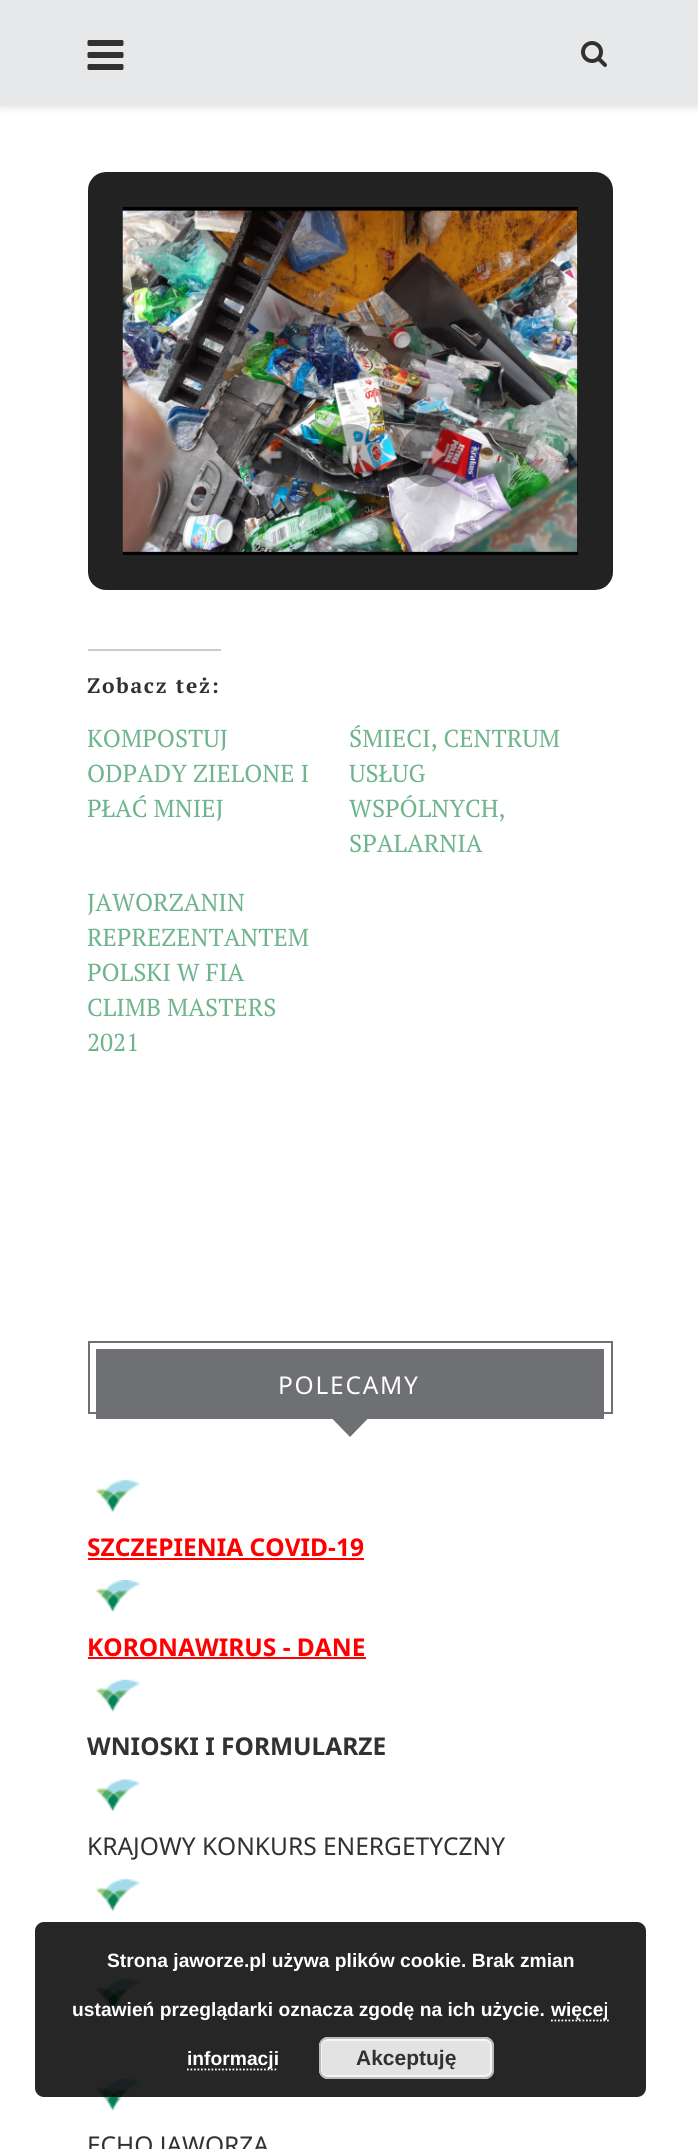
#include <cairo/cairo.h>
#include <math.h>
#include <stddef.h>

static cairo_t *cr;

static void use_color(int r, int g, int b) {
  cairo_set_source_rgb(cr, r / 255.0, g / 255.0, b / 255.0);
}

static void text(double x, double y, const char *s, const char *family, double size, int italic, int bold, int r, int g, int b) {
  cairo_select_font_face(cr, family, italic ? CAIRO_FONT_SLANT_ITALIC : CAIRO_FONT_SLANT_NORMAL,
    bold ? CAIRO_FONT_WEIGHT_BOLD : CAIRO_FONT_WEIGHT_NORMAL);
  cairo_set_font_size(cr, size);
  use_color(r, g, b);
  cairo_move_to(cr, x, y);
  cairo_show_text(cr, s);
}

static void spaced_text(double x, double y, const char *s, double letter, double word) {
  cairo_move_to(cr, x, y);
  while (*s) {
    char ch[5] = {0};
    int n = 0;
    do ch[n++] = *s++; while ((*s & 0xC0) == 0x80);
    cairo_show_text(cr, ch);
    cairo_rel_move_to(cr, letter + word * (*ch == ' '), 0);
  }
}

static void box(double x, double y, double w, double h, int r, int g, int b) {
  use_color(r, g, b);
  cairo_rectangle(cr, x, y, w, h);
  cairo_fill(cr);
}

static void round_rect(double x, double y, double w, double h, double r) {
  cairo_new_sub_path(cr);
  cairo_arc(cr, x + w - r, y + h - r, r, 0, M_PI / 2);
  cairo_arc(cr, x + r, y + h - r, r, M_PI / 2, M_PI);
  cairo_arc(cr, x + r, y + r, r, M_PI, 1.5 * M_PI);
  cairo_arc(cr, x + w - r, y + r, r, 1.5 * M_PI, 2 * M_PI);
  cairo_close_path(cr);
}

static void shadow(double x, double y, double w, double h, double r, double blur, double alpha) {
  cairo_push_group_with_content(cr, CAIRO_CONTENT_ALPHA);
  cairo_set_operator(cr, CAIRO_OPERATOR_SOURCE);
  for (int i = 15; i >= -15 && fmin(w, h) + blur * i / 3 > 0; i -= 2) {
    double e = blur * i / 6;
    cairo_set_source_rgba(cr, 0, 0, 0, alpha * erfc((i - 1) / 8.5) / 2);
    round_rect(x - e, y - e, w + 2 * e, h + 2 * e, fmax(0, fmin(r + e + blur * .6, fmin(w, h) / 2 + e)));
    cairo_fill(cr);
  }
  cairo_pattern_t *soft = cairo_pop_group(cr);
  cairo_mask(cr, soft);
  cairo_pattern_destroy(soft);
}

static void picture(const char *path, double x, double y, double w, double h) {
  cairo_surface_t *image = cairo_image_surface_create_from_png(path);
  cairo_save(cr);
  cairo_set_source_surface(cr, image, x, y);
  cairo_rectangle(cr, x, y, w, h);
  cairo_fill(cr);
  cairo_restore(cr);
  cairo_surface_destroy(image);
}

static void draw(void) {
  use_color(255, 255, 255);
  cairo_paint(cr);
  use_color(190, 190, 190);
  shadow(0, 2, 698, 105, 0, 4.5, 0.46);
  box(0, 0, 698, 105, 231, 232, 233);
  picture("img_01.png", 87, 40, 37, 30);
  picture("img_02.png", 581, 41, 26, 26);
  round_rect(105.5, 189.5, 490, 383, 0.5);
  use_color(34, 34, 34);
  cairo_set_line_width(cr, 35);
  cairo_stroke(cr);
  box(123, 207, 455, 348, 0, 0, 0);
  picture("img_03.png", 122, 210, 456, 342);
  cairo_set_source_rgba(cr, 0, 0, 0, 0.3);
  cairo_arc(cr, 269.5, 455.5, 31.5, 0, 2 * M_PI);
  cairo_fill(cr);
  picture("img_04.png", 257, 444, 27, 22);
  cairo_rectangle(cr, 240, 426, 59, 59);
  cairo_set_source_rgba(cr, 1, 1, 1, 0.05);
  cairo_set_line_width(cr, 4);
  cairo_stroke(cr);
  cairo_set_source_rgba(cr, 0, 0, 0, 0.3);
  cairo_arc(cr, 350.5, 455.5, 31.5, 0, 2 * M_PI);
  cairo_fill(cr);
  picture("img_05.png", 342, 445, 19, 22);
  cairo_rectangle(cr, 321, 426, 59, 59);
  cairo_set_source_rgba(cr, 1, 1, 1, 0.05);
  cairo_stroke(cr);
  cairo_set_source_rgba(cr, 0, 0, 0, 0.3);
  cairo_arc(cr, 430.5, 455.5, 31.5, 0, 2 * M_PI);
  cairo_fill(cr);
  picture("img_06.png", 420, 444, 28, 23);
  cairo_rectangle(cr, 401, 426, 59, 59);
  cairo_set_source_rgba(cr, 1, 1, 1, 0.05);
  cairo_stroke(cr);
  box(88, 649, 133, 2, 204, 204, 204);
  cairo_rectangle(cr, 89, 1342, 523, 71);
  use_color(110, 112, 115);
  cairo_set_line_width(cr, 2);
  cairo_stroke(cr);
  box(96, 1349, 508, 70, 110, 112, 115);
  cairo_new_path(cr);
  cairo_move_to(cr, 332.5, 1419);
  cairo_line_to(cr, 367.5, 1419);
  cairo_line_to(cr, 350, 1437);
  cairo_close_path(cr);
  cairo_fill(cr);
  picture("img_07.png", 96, 1480, 44, 33);
  box(88, 1558, 276, 2, 255, 0, 0);
  picture("img_08.png", 96, 1580, 44, 32);
  box(88, 1657, 278, 2, 255, 0, 0);
  picture("img_09.png", 96, 1679, 44, 33);
  picture("img_10.png", 96, 1779, 44, 33);
  picture("img_07.png", 96, 1879, 44, 33);
  picture("img_08.png", 96, 1979, 44, 32);
  picture("img_09.png", 96, 2078, 44, 33);
  cairo_set_source_rgba(cr, 0, 0, 0, 0.85);
  round_rect(35, 1922, 611, 175, 9);
  cairo_fill(cr);
  cairo_new_path(cr);
  cairo_move_to(cr, 551, 2020.5);
  cairo_line_to(cr, 609, 2020.5);
  use_color(255, 255, 255);
  cairo_set_line_width(cr, 1.8);
  cairo_set_dash(cr, (double[]){1.75, 1.75}, 2, 0);
  cairo_stroke(cr);
  cairo_new_path(cr);
  cairo_move_to(cr, 187, 2069.5);
  cairo_line_to(cr, 278, 2069.5);
  cairo_stroke(cr);
  use_color(227, 227, 227);
  round_rect(319, 2037, 175, 42, 9);
  cairo_fill(cr);
  round_rect(321, 2040, 170, 36, 6);
  use_color(246, 246, 246);
  cairo_set_line_width(cr, 2);
  cairo_set_dash(cr, NULL, 0, 0);
  cairo_stroke(cr);
  round_rect(320, 2038, 173, 40, 8);
  use_color(187, 187, 187);
  cairo_stroke(cr);
  cairo_select_font_face(cr, "PT Serif", CAIRO_FONT_SLANT_NORMAL, CAIRO_FONT_WEIGHT_BOLD);
  cairo_set_font_size(cr, 21);
  use_color(49, 49, 49);
  spaced_text(87, 693, "Zobacz też:", 1.75, 0);
  cairo_save(cr);
  cairo_rectangle(cr, 88, 721, 236, 105);
  cairo_clip(cr);
  text(87, 747, "KOMPOSTUJ", "PT Serif", 24.5, 0, 0, 110, 180, 140);
  cairo_restore(cr);
  text(87, 782, "ODPADY ZIELONE I", "PT Serif", 24.5, 0, 0, 110, 180, 140);
  cairo_save(cr);
  cairo_rectangle(cr, 88, 721, 236, 105);
  cairo_clip(cr);
  text(87, 817, "PŁAĆ MNIEJ", "PT Serif", 24.5, 0, 0, 110, 180, 140);
  cairo_restore(cr);
  text(349, 747, "ŚMIECI, CENTRUM", "PT Serif", 24.5, 0, 0, 110, 180, 140);
  text(349, 782, "USŁUG", "PT Serif", 24.5, 0, 0, 110, 180, 140);
  text(349, 817, "WSPÓLNYCH,", "PT Serif", 24.5, 0, 0, 110, 180, 140);
  text(349, 852, "SPALARNIA", "PT Serif", 24.5, 0, 0, 110, 180, 140);
  text(87, 911, "JAWORZANIN", "PT Serif", 24.5, 0, 0, 110, 180, 140);
  cairo_save(cr);
  cairo_rectangle(cr, 88, 886, 236, 175);
  cairo_clip(cr);
  text(87, 946, "REPREZENTANTEM", "PT Serif", 24.5, 0, 0, 110, 180, 140);
  text(87, 981, "POLSKI W FIA", "PT Serif", 24.5, 0, 0, 110, 180, 140);
  cairo_restore(cr);
  text(87, 1016, "CLIMB MASTERS", "PT Serif", 24.5, 0, 0, 110, 180, 140);
  text(87, 1051, "2021", "PT Serif", 24.5, 0, 0, 110, 180, 140);
  cairo_select_font_face(cr, "Noto Sans", CAIRO_FONT_SLANT_NORMAL, CAIRO_FONT_WEIGHT_NORMAL);
  use_color(255, 255, 255);
  spaced_text(278, 1394, "POLECAMY", 1.75, 0);
  text(87, 1556, "SZCZEPIENIA COVID-19", "Noto Sans", 24.5, 0, 1, 255, 0, 0);
  text(87, 1656, "KORONAWIRUS - DANE", "Noto Sans", 24.5, 0, 1, 255, 0, 0);
  text(87, 1755, "WNIOSKI I FORMULARZE", "Noto Sans", 24.5, 0, 1, 49, 49, 49);
  text(87, 1855, "KRAJOWY KONKURS ENERGETYCZNY", "Noto Sans", 24.5, 0, 0, 49, 49, 49);
  text(87, 2154, "ECHO JAWORZA", "Noto Sans", 24.5, 0, 0, 49, 49, 49);
  text(107, 1967, "Strona jaworze.pl używa plików cookie. Brak zmian", "Liberation Sans", 19.25, 0, 1, 255, 255, 255);
  text(72, 2016, "ustawień przeglądarki oznacza zgodę na ich użycie.", "Liberation Sans", 19.25, 0, 1, 255, 255, 255);
  text(551, 2016, "więcej", "Liberation Sans", 19.25, 0, 1, 255, 255, 255);
  text(187, 2065, "informacji", "Liberation Sans", 19.25, 0, 1, 255, 255, 255);
  text(356, 2065, "Akceptuję", "Liberation Sans", 21, 0, 1, 49, 49, 49);
}

int main(void) {
  cairo_surface_t *surface = cairo_image_surface_create(CAIRO_FORMAT_RGB24, 698, 2149);
  cr = cairo_create(surface);
  cairo_font_options_t *options = cairo_font_options_create();
  cairo_font_options_set_hint_metrics(options, CAIRO_HINT_METRICS_OFF);
  cairo_font_options_set_hint_style(options, CAIRO_HINT_STYLE_NONE);
  cairo_set_font_options(cr, options);
  cairo_set_miter_limit(cr, 4);
  draw();
  cairo_surface_write_to_png(surface, "out.png");
  cairo_font_options_destroy(options);
  cairo_destroy(cr);
  cairo_surface_destroy(surface);
  return 0;
}
